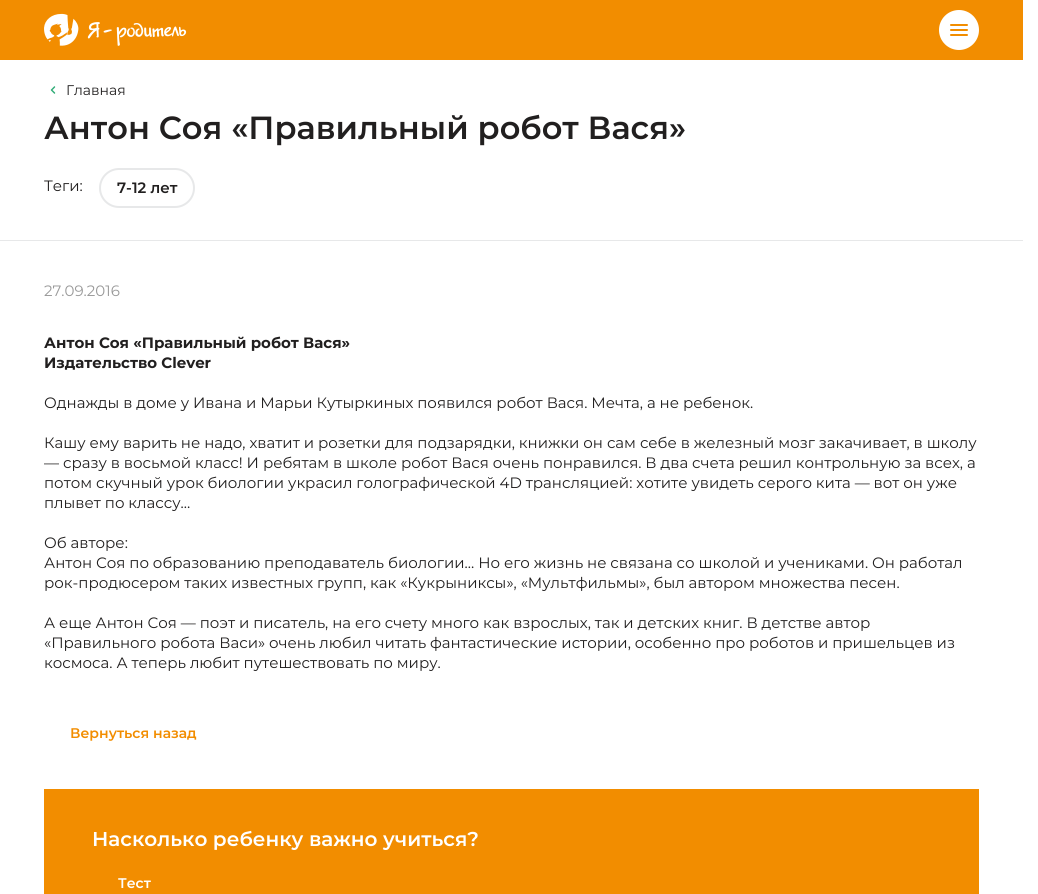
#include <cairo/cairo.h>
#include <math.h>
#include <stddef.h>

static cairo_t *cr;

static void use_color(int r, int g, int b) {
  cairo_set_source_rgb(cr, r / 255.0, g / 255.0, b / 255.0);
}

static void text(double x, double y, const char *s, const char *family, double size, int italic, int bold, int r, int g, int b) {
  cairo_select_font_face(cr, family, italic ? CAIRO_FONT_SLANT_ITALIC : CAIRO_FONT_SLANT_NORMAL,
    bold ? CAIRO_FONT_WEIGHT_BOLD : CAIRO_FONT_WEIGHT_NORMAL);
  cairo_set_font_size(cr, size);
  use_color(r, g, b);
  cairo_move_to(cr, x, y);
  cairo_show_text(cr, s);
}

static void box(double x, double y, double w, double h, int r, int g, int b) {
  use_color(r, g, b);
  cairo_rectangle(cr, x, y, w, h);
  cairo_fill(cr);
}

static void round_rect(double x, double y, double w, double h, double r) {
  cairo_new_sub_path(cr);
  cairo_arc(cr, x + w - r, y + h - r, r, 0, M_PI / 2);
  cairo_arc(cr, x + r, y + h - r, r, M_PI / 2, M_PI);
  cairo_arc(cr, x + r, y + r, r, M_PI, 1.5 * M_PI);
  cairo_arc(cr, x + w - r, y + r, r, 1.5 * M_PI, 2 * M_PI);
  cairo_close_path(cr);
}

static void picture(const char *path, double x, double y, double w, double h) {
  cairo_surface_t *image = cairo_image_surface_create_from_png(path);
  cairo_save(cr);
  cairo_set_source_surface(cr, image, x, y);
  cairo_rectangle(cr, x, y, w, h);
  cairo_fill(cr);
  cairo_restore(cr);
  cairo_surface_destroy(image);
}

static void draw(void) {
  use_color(255, 255, 255);
  cairo_paint(cr);
  box(0, 0, 1023, 60, 242, 141, 0);
  picture("img_01.png", 44, 13, 143, 33);
  use_color(255, 255, 255);
  cairo_arc(cr, 959, 30, 20, 0, 2 * M_PI);
  cairo_fill(cr);
  use_color(242, 141, 0);
  round_rect(950, 24, 18, 2, 1);
  cairo_fill(cr);
  round_rect(950, 29, 18, 2, 1);
  cairo_fill(cr);
  round_rect(950, 34, 18, 2, 1);
  cairo_fill(cr);
  picture("img_02.png", 50, 86, 6, 8);
  box(0, 240, 1023, 1, 231, 232, 233);
  round_rect(100, 169, 94, 38, 19);
  cairo_stroke(cr);
  box(44, 789, 935, 105, 242, 141, 0);
  text(66, 95, "Главная", "Montserrat", 14, 0, 0, 33, 31, 31);
  text(44, 139, "Антон Соя «Правильный робот Вася»", "Montserrat SemiBold", 32, 0, 0, 33, 31, 31);
  text(44, 191, "Теги:", "Montserrat", 15, 0, 0, 33, 31, 31);
  text(117, 193, "7-12 лет", "Montserrat SemiBold", 15, 0, 0, 33, 31, 31);
  text(44, 296, "27.09.2016", "Montserrat", 15, 0, 0, 153, 153, 153);
  text(44, 348, "Антон Соя «Правильный робот Вася»", "Montserrat", 15, 0, 1, 33, 31, 31);
  text(44, 368, "Издательство Clever", "Montserrat", 15, 0, 1, 33, 31, 31);
  text(44, 408, "Однажды в доме у Ивана и Марьи Кутыркиных появился робот Вася. Мечта, а не ребенок.", "Montserrat", 15, 0, 0, 33, 31, 31);
  text(44, 448, "Кашу ему варить не надо, хватит и розетки для подзарядки, книжки он сам себе в железный мозг закачивает, в школу", "Montserrat", 15, 0, 0, 33, 31, 31);
  text(44, 468, "— сразу в восьмой класс! И ребятам в школе робот Вася очень понравился. В два счета решил контрольную за всех, а", "Montserrat", 15, 0, 0, 33, 31, 31);
  text(44, 488, "потом скучный урок биологии украсил голографической 4D трансляцией: хотите увидеть серого кита — вот он уже", "Montserrat", 15, 0, 0, 33, 31, 31);
  text(44, 508, "плывет по классу…", "Montserrat", 15, 0, 0, 33, 31, 31);
  text(44, 548, "Об авторе:", "Montserrat", 15, 0, 0, 33, 31, 31);
  text(44, 568, "Антон Соя по образованию преподаватель биологии… Но его жизнь не связана со школой и учениками. Он работал", "Montserrat", 15, 0, 0, 33, 31, 31);
  text(44, 588, "рок-продюсером таких известных групп, как «Кукрыниксы», «Мультфильмы», был автором множества песен.", "Montserrat", 15, 0, 0, 33, 31, 31);
  text(44, 628, "А еще Антон Соя — поэт и писатель, на его счету много как взрослых, так и детских книг. В детстве автор", "Montserrat", 15, 0, 0, 33, 31, 31);
  text(44, 648, "«Правильного робота Васи» очень любил читать фантастические истории, особенно про роботов и пришельцев из", "Montserrat", 15, 0, 0, 33, 31, 31);
  text(44, 668, "космоса. А теперь любит путешествовать по миру.", "Montserrat", 15, 0, 0, 33, 31, 31);
  text(70, 738, "Вернуться назад", "Montserrat SemiBold", 14, 0, 0, 242, 141, 0);
  text(92, 846, "Насколько ребенку важно учиться?", "Montserrat SemiBold", 20, 0, 0, 255, 255, 255);
  text(118, 888, "Тест", "Montserrat SemiBold", 14, 0, 0, 255, 255, 255);
}

int main(void) {
  cairo_surface_t *surface = cairo_image_surface_create(CAIRO_FORMAT_RGB24, 1038, 894);
  cr = cairo_create(surface);
  cairo_font_options_t *options = cairo_font_options_create();
  cairo_font_options_set_hint_metrics(options, CAIRO_HINT_METRICS_OFF);
  cairo_font_options_set_hint_style(options, CAIRO_HINT_STYLE_NONE);
  cairo_set_font_options(cr, options);
  cairo_set_miter_limit(cr, 4);
  draw();
  cairo_surface_write_to_png(surface, "out.png");
  cairo_font_options_destroy(options);
  cairo_destroy(cr);
  cairo_surface_destroy(surface);
  return 0;
}
